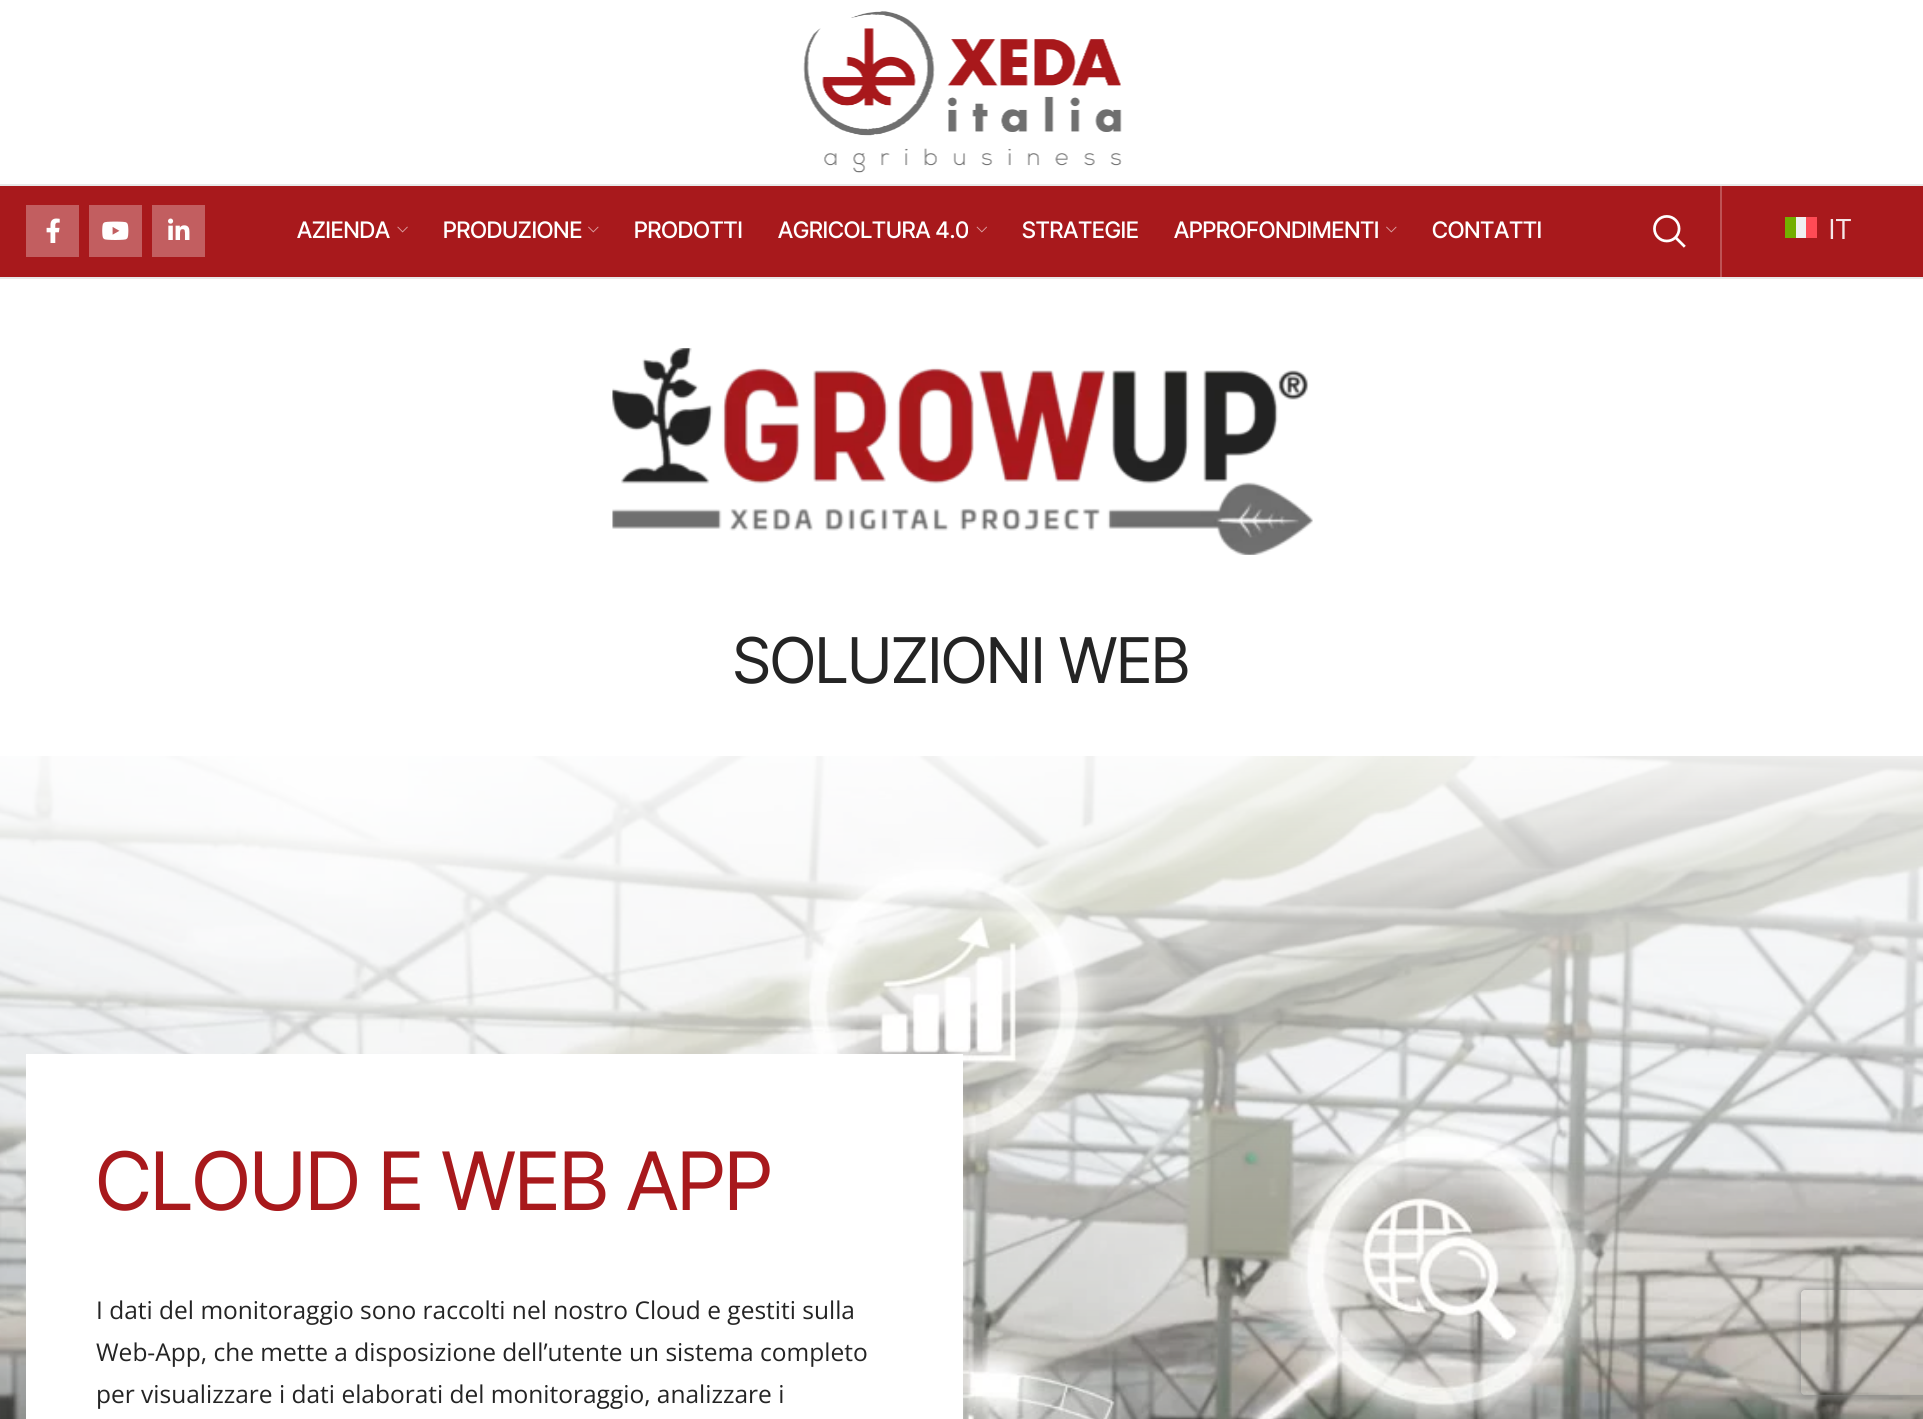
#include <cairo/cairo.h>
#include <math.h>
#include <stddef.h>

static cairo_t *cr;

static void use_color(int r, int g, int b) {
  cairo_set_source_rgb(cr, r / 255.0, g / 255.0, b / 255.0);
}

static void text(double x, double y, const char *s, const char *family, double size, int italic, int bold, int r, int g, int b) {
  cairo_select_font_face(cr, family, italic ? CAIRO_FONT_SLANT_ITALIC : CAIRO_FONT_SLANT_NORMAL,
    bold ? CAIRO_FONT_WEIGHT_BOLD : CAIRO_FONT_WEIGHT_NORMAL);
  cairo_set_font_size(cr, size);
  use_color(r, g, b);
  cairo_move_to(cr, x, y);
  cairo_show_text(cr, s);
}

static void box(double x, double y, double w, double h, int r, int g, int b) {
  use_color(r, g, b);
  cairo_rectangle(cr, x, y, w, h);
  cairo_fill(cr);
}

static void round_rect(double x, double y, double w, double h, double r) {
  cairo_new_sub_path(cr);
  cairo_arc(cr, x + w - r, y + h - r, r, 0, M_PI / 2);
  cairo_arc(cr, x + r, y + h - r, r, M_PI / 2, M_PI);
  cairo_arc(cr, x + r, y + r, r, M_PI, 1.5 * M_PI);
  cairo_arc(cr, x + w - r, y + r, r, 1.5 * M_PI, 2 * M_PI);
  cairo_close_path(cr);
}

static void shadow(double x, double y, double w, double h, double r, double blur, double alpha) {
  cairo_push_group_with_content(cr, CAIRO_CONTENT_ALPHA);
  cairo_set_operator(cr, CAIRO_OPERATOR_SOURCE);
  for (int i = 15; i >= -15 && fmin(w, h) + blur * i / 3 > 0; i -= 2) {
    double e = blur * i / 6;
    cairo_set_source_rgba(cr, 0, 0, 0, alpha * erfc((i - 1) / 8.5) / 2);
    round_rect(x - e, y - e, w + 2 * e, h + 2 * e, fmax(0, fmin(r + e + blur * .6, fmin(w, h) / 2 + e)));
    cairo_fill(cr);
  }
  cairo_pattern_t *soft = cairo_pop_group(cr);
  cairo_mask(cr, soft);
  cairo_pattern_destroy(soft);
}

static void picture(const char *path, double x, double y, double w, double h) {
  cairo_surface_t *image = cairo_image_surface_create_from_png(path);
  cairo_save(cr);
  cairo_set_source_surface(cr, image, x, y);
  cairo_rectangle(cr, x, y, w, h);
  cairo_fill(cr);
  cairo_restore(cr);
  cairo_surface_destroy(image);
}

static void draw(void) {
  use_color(255, 255, 255);
  cairo_paint(cr);
  box(0, 184, 1923, 2, 232, 232, 232);
  picture("img_01.png", 803, 11, 319, 162);
  box(0, 186, 1923, 91, 168, 25, 28);
  box(0, 277, 1923, 2, 232, 232, 232);
  box(26, 205, 53, 52, 194, 94, 96);
  picture("img_02.png", 46, 218, 14, 25);
  box(89, 205, 53, 52, 194, 94, 96);
  picture("img_03.png", 102, 221, 27, 19);
  box(152, 205, 53, 52, 194, 94, 96);
  picture("img_04.png", 168, 218, 22, 22);
  picture("img_05.png", 397, 226, 11, 7);
  picture("img_06.png", 588, 226, 11, 7);
  picture("img_07.png", 976, 226, 11, 7);
  picture("img_06.png", 1386, 226, 11, 7);
  picture("img_08.png", 1653, 215, 33, 33);
  box(1720, 186, 2, 91, 190, 83, 85);
  box(1785, 217, 11, 21, 115, 175, 0);
  box(1796, 217, 10, 21, 240, 240, 240);
  box(1806, 217, 11, 21, 255, 75, 85);
  picture("img_09.png", 612, 348, 701, 207);
  picture("img_10.png", 0, 756, 1923, 663);
  box(26, 1054, 937, 365, 255, 255, 255);
  cairo_save(cr);
  cairo_set_fill_rule(cr, CAIRO_FILL_RULE_EVEN_ODD);
  cairo_new_path(cr);
  cairo_move_to(cr, 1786, 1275);
  cairo_line_to(cr, 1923, 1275);
  cairo_line_to(cr, 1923, 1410);
  cairo_line_to(cr, 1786, 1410);
  cairo_close_path(cr);
  cairo_move_to(cr, 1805, 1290);
  cairo_line_to(cr, 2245, 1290);
  cairo_curve_to(cr, 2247, 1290, 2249, 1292, 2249, 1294);
  cairo_line_to(cr, 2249, 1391);
  cairo_curve_to(cr, 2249, 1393, 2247, 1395, 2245, 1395);
  cairo_line_to(cr, 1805, 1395);
  cairo_curve_to(cr, 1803, 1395, 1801, 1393, 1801, 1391);
  cairo_line_to(cr, 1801, 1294);
  cairo_curve_to(cr, 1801, 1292, 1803, 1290, 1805, 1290);
  cairo_close_path(cr);
  cairo_clip(cr);
  use_color(128, 128, 128);
  shadow(1801, 1290, 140, 105, 4, 4.5, 1);
  cairo_restore(cr);
  text(297, 238, "AZIENDA", "Inter Tight Medium", 22.75, 0, 0, 255, 255, 255);
  text(443, 238, "PRODUZIONE", "Inter Tight Medium", 22.75, 0, 0, 255, 255, 255);
  text(634, 238, "PRODOTTI", "Inter Tight Medium", 22.75, 0, 0, 255, 255, 255);
  text(778, 238, "AGRICOLTURA 4.0", "Inter Tight Medium", 22.75, 0, 0, 255, 255, 255);
  text(1022, 238, "STRATEGIE", "Inter Tight Medium", 22.75, 0, 0, 255, 255, 255);
  text(1174, 238, "APPROFONDIMENTI", "Inter Tight Medium", 22.75, 0, 0, 255, 255, 255);
  text(1432, 238, "CONTATTI", "Inter Tight Medium", 22.75, 0, 0, 255, 255, 255);
  text(1828, 239, "IT", "Open Sans", 28, 0, 0, 246, 232, 232);
  text(733, 683, "SOLUZIONI WEB", "Inter Tight", 63, 0, 0, 36, 36, 36);
  text(96, 1210, "CLOUD E WEB APP", "Inter Tight", 80.5, 0, 0, 168, 25, 28);
  text(96, 1319, "I dati del monitoraggio sono raccolti nel nostro Cloud e gestiti sulla", "Open Sans", 24.5, 0, 0, 36, 36, 36);
  text(96, 1361, "Web-App, che mette a disposizione dell’utente un sistema completo", "Open Sans", 24.5, 0, 0, 36, 36, 36);
  text(96, 1403, "per visualizzare i dati elaborati del monitoraggio, analizzare i", "Open Sans", 24.5, 0, 0, 36, 36, 36);
}

int main(void) {
  cairo_surface_t *surface = cairo_image_surface_create(CAIRO_FORMAT_RGB24, 1923, 1419);
  cr = cairo_create(surface);
  cairo_font_options_t *options = cairo_font_options_create();
  cairo_font_options_set_hint_metrics(options, CAIRO_HINT_METRICS_OFF);
  cairo_font_options_set_hint_style(options, CAIRO_HINT_STYLE_NONE);
  cairo_set_font_options(cr, options);
  cairo_set_miter_limit(cr, 4);
  draw();
  cairo_surface_write_to_png(surface, "out.png");
  cairo_font_options_destroy(options);
  cairo_destroy(cr);
  cairo_surface_destroy(surface);
  return 0;
}
